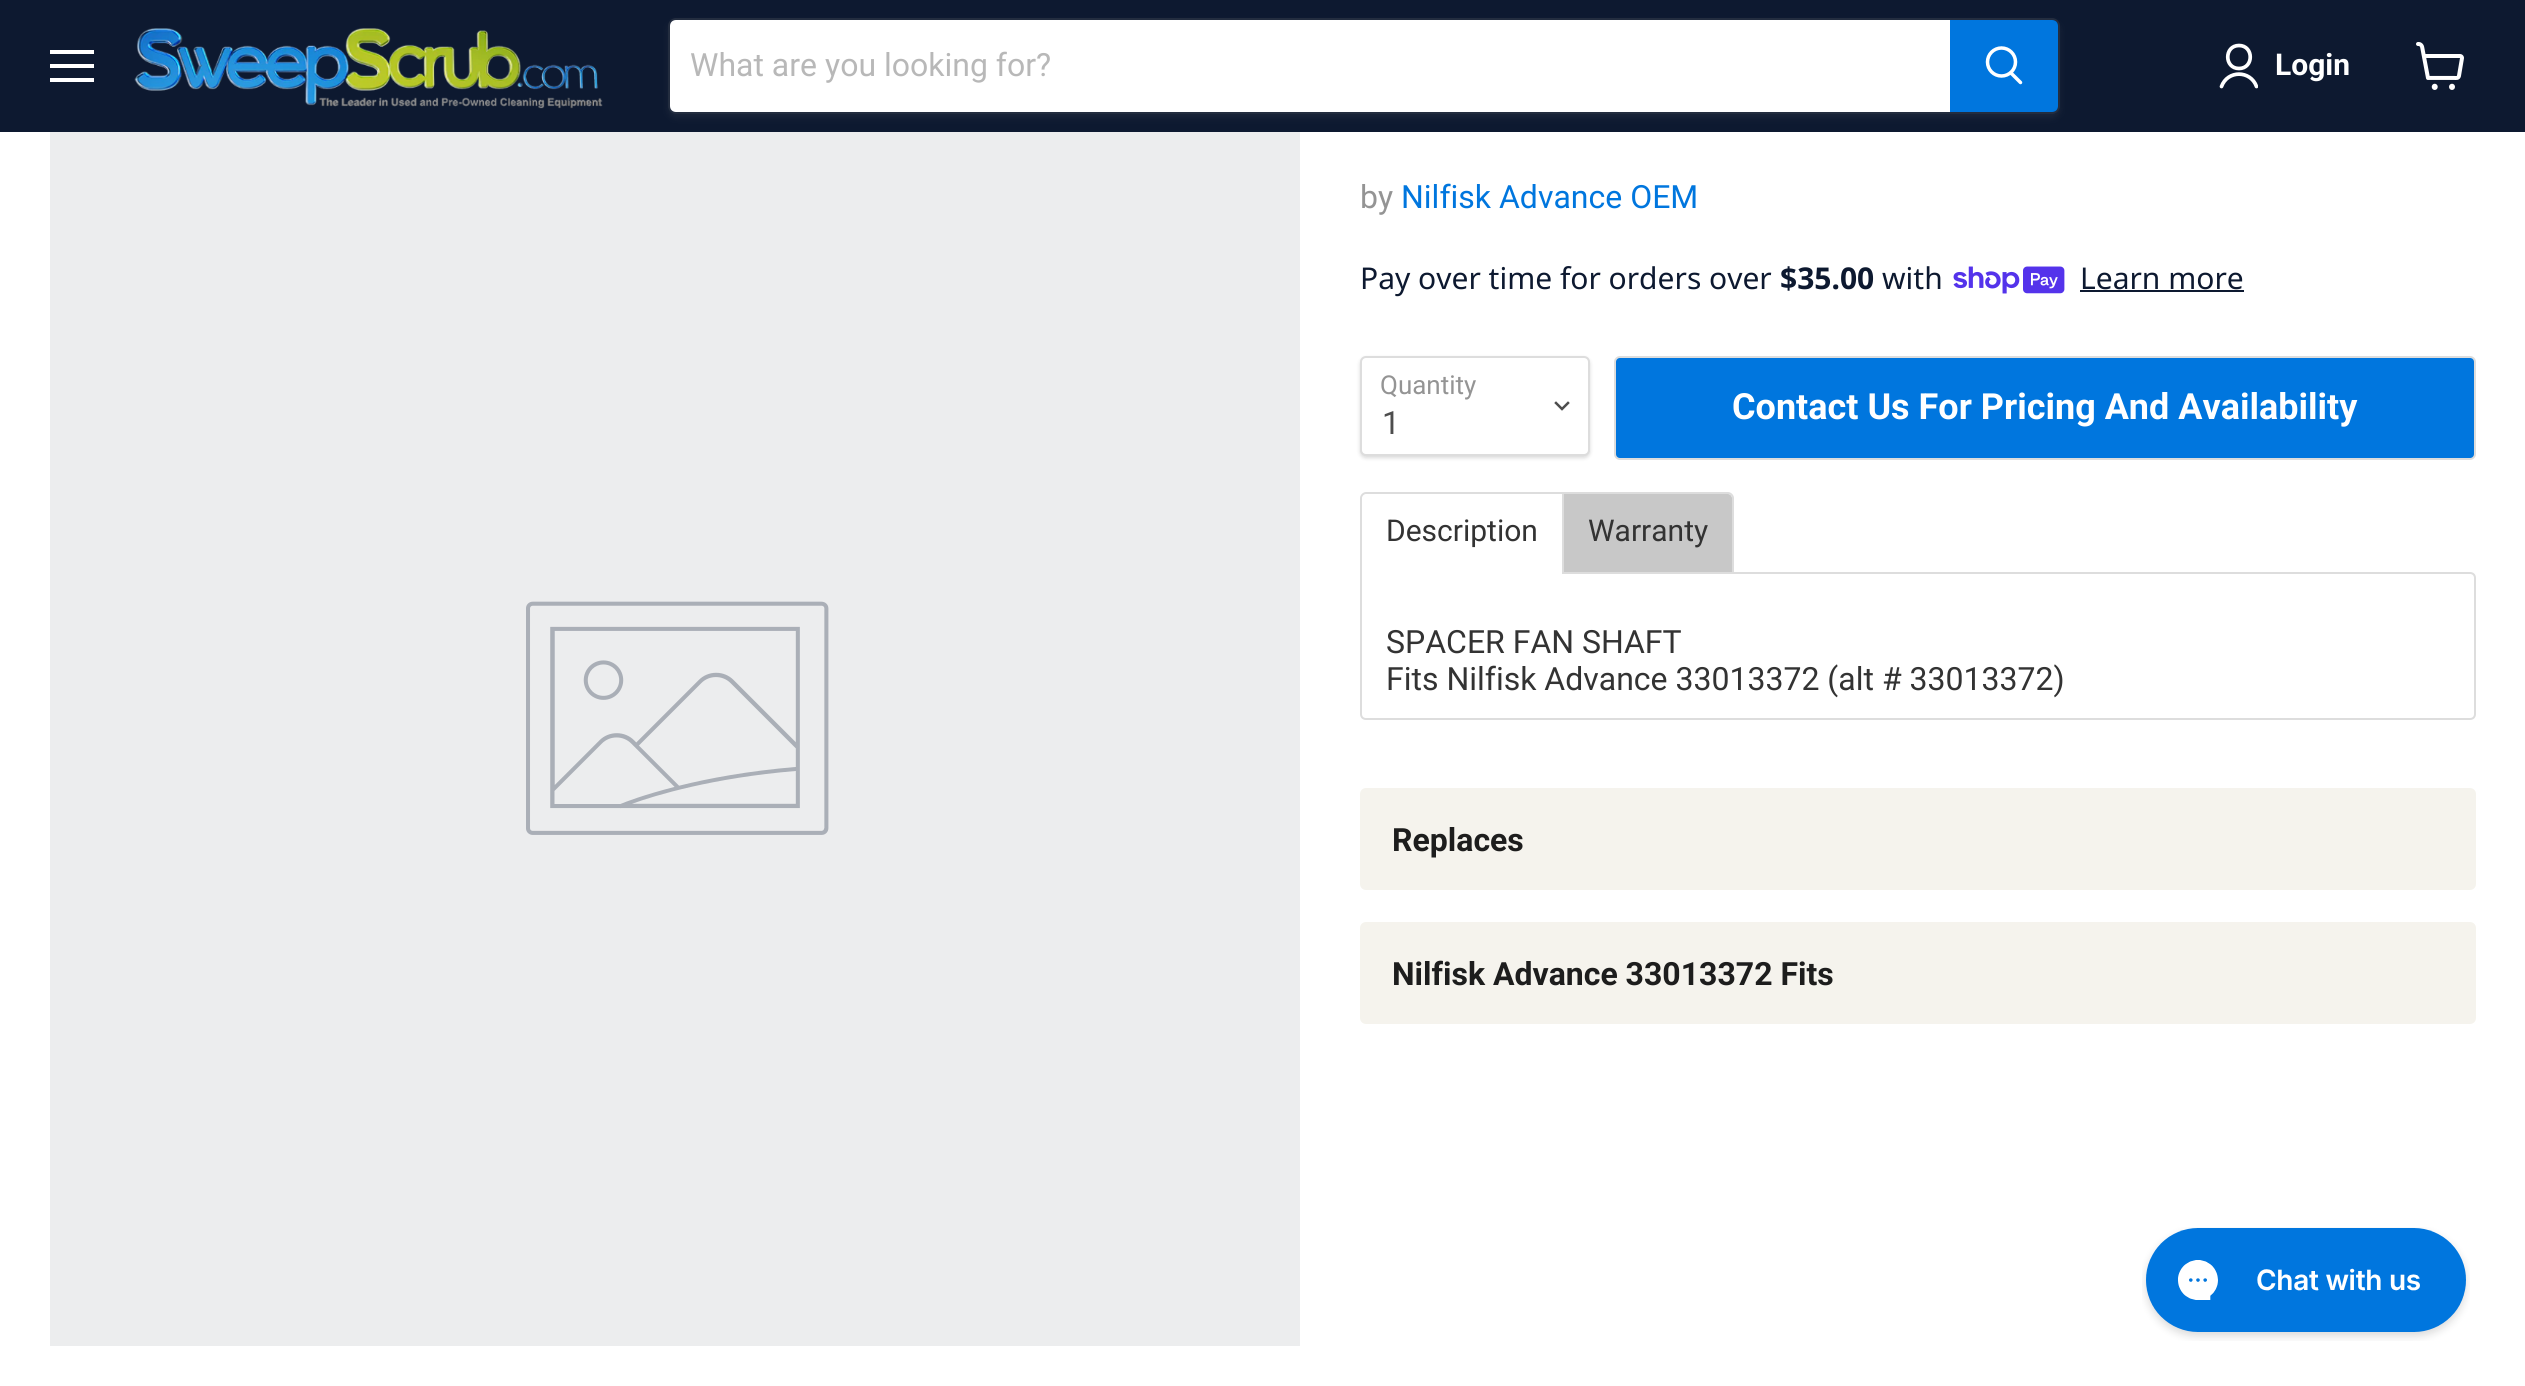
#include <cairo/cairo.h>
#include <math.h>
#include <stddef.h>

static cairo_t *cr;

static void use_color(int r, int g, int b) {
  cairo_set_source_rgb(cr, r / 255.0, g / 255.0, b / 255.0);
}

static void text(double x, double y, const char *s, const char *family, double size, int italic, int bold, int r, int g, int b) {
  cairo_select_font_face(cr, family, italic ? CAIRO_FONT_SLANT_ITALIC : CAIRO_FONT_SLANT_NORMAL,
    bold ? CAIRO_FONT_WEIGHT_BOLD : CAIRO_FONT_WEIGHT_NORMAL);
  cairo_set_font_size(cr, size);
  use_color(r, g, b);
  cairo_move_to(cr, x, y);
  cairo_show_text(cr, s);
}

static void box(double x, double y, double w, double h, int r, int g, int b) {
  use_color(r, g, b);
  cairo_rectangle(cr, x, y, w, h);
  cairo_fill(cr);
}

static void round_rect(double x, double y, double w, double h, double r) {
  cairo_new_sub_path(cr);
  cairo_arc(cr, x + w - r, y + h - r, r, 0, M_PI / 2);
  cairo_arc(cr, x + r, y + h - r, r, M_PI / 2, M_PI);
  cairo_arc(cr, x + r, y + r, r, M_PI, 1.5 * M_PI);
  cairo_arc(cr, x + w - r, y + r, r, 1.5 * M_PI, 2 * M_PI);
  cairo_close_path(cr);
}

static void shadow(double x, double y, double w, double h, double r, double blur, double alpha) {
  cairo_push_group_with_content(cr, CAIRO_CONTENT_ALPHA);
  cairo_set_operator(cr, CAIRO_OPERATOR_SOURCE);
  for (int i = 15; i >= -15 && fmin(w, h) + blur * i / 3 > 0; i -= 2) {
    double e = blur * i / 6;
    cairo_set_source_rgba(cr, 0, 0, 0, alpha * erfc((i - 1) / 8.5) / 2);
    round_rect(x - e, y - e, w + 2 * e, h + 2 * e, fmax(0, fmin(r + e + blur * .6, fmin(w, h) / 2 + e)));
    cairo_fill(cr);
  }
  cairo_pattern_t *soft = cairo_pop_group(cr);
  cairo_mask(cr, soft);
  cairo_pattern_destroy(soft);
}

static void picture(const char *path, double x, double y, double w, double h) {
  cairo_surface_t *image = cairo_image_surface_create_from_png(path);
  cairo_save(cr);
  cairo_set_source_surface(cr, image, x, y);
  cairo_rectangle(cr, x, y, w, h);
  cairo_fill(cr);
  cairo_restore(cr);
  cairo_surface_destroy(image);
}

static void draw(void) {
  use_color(255, 255, 255);
  cairo_paint(cr);
  box(0, 0, 2525, 132, 13, 25, 48);
  box(50, 50, 44, 4, 255, 255, 255);
  box(50, 64, 44, 4, 255, 255, 255);
  box(50, 78, 44, 4, 255, 255, 255);
  picture("img_01.png", 134, 28, 469, 81);
  cairo_save(cr);
  cairo_set_fill_rule(cr, CAIRO_FILL_RULE_EVEN_ODD);
  cairo_new_path(cr);
  cairo_move_to(cr, 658, 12);
  cairo_line_to(cr, 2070, 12);
  cairo_line_to(cr, 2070, 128);
  cairo_line_to(cr, 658, 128);
  cairo_close_path(cr);
  cairo_move_to(cr, 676, 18);
  cairo_line_to(cr, 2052, 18);
  cairo_curve_to(cr, 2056.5, 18, 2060, 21.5, 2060, 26);
  cairo_line_to(cr, 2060, 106);
  cairo_curve_to(cr, 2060, 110.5, 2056.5, 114, 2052, 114);
  cairo_line_to(cr, 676, 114);
  cairo_curve_to(cr, 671.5, 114, 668, 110.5, 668, 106);
  cairo_line_to(cr, 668, 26);
  cairo_curve_to(cr, 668, 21.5, 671.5, 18, 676, 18);
  cairo_close_path(cr);
  cairo_clip(cr);
  use_color(128, 128, 128);
  shadow(668, 22, 1392, 96, 8, 3, 0.11);
  cairo_restore(cr);
  round_rect(669, 19, 1390, 94, 7);
  cairo_set_source_rgba(cr, 0.502, 0.502, 0.502, 0.2);
  cairo_stroke(cr);
  use_color(255, 255, 255);
  cairo_new_path(cr);
  cairo_move_to(cr, 676, 20);
  cairo_line_to(cr, 1950, 20);
  cairo_line_to(cr, 1950, 112);
  cairo_line_to(cr, 676, 112);
  cairo_curve_to(cr, 672.5, 112, 670, 109.5, 670, 106);
  cairo_line_to(cr, 670, 26);
  cairo_curve_to(cr, 670, 22.5, 672.5, 20, 676, 20);
  cairo_close_path(cr);
  cairo_fill(cr);
  use_color(0, 118, 222);
  cairo_new_path(cr);
  cairo_move_to(cr, 1951, 21);
  cairo_line_to(cr, 2052, 21);
  cairo_curve_to(cr, 2055, 21, 2057, 23, 2057, 26);
  cairo_line_to(cr, 2057, 106);
  cairo_curve_to(cr, 2057, 109, 2055, 111, 2052, 111);
  cairo_line_to(cr, 1951, 111);
  cairo_close_path(cr);
  cairo_fill_preserve(cr);
  cairo_stroke(cr);
  cairo_new_path(cr);
  cairo_move_to(cr, 2020.5, 82.5);
  cairo_line_to(cr, 2011, 73);
  use_color(255, 255, 255);
  cairo_set_line_width(cr, 3.5);
  cairo_set_line_cap(cr, CAIRO_LINE_CAP_ROUND);
  cairo_stroke(cr);
  cairo_arc(cr, 2001.5, 62, 14, 0, 2 * M_PI);
  cairo_set_line_cap(cr, CAIRO_LINE_CAP_BUTT);
  cairo_stroke(cr);
  cairo_new_path(cr);
  cairo_move_to(cr, 2239, 68.5);
  cairo_curve_to(cr, 2254, 68.5, 2254, 45.5, 2239, 45.5);
  cairo_curve_to(cr, 2224, 45.5, 2224, 68.5, 2239, 68.5);
  cairo_close_path(cr);
  cairo_set_line_width(cr, 3.7);
  cairo_set_line_cap(cr, CAIRO_LINE_CAP_ROUND);
  cairo_set_line_join(cr, CAIRO_LINE_JOIN_ROUND);
  cairo_stroke(cr);
  cairo_save(cr);
  cairo_rectangle(cr, 2218, 42, 40, 48);
  cairo_clip(cr);
  cairo_new_path(cr);
  cairo_move_to(cr, 2256.5, 86.5);
  cairo_curve_to(cr, 2250.5, 70, 2227.5, 70, 2221.5, 86.5);
  cairo_stroke(cr);
  cairo_restore(cr);
  picture("img_02.png", 2416, 42, 48, 48);
  box(50, 132, 1250, 1214, 236, 237, 238);
  picture("img_03.png", 526, 601, 303, 234);
  picture("img_04.png", 1953, 266, 112, 28);
  box(2080, 290, 164, 2, 13, 25, 48);
  use_color(0, 0, 0);
  shadow(1360, 358, 230, 100, 6, 2, 0.15);
  use_color(255, 255, 255);
  round_rect(1361, 357, 228, 98, 5);
  cairo_fill_preserve(cr);
  use_color(221, 221, 221);
  cairo_set_line_width(cr, 2);
  cairo_set_line_cap(cr, CAIRO_LINE_CAP_BUTT);
  cairo_set_line_join(cr, CAIRO_LINE_JOIN_MITER);
  cairo_stroke(cr);
  cairo_new_path(cr);
  cairo_move_to(cr, 1562, 409);
  cairo_line_to(cr, 1568, 403);
  cairo_move_to(cr, 1562, 409);
  cairo_line_to(cr, 1556, 403);
  use_color(77, 77, 77);
  cairo_set_line_width(cr, 2.5);
  cairo_set_line_cap(cr, CAIRO_LINE_CAP_SQUARE);
  cairo_stroke(cr);
  use_color(0, 118, 222);
  round_rect(1615, 357, 860, 102, 5);
  cairo_fill_preserve(cr);
  use_color(221, 221, 221);
  cairo_set_line_width(cr, 2);
  cairo_set_line_cap(cr, CAIRO_LINE_CAP_BUTT);
  cairo_stroke(cr);
  cairo_new_path(cr);
  cairo_move_to(cr, 1361, 573);
  cairo_line_to(cr, 2470, 573);
  cairo_curve_to(cr, 2473, 573, 2475, 575, 2475, 578);
  cairo_line_to(cr, 2475, 714);
  cairo_curve_to(cr, 2475, 717, 2473, 719, 2470, 719);
  cairo_line_to(cr, 1366, 719);
  cairo_curve_to(cr, 1363, 719, 1361, 717, 1361, 714);
  cairo_close_path(cr);
  cairo_stroke(cr);
  use_color(255, 255, 255);
  cairo_new_path(cr);
  cairo_move_to(cr, 1366, 494);
  cairo_line_to(cr, 1562, 494);
  cairo_line_to(cr, 1562, 574);
  cairo_line_to(cr, 1362, 574);
  cairo_line_to(cr, 1362, 498);
  cairo_curve_to(cr, 1362, 496, 1364, 494, 1366, 494);
  cairo_close_path(cr);
  cairo_fill(cr);
  use_color(221, 221, 221);
  cairo_set_fill_rule(cr, CAIRO_FILL_RULE_EVEN_ODD);
  cairo_new_path(cr);
  cairo_move_to(cr, 1366, 492);
  cairo_line_to(cr, 1564, 492);
  cairo_line_to(cr, 1564, 574);
  cairo_line_to(cr, 1360, 574);
  cairo_line_to(cr, 1360, 498);
  cairo_curve_to(cr, 1360, 495, 1363, 492, 1366, 492);
  cairo_close_path(cr);
  cairo_move_to(cr, 1366, 494);
  cairo_line_to(cr, 1562, 494);
  cairo_line_to(cr, 1562, 574);
  cairo_line_to(cr, 1362, 574);
  cairo_line_to(cr, 1362, 498);
  cairo_curve_to(cr, 1362, 496, 1364, 494, 1366, 494);
  cairo_close_path(cr);
  cairo_fill(cr);
  use_color(200, 200, 200);
  cairo_new_path(cr);
  cairo_move_to(cr, 1564, 494);
  cairo_line_to(cr, 1728, 494);
  cairo_curve_to(cr, 1730, 494, 1732, 496, 1732, 498);
  cairo_line_to(cr, 1732, 572);
  cairo_line_to(cr, 1564, 572);
  cairo_close_path(cr);
  cairo_fill(cr);
  use_color(221, 221, 221);
  cairo_new_path(cr);
  cairo_move_to(cr, 1564, 492);
  cairo_line_to(cr, 1728, 492);
  cairo_curve_to(cr, 1731, 492, 1734, 495, 1734, 498);
  cairo_line_to(cr, 1734, 574);
  cairo_line_to(cr, 1564, 574);
  cairo_close_path(cr);
  cairo_move_to(cr, 1564, 494);
  cairo_line_to(cr, 1728, 494);
  cairo_curve_to(cr, 1730, 494, 1732, 496, 1732, 498);
  cairo_line_to(cr, 1732, 572);
  cairo_line_to(cr, 1564, 572);
  cairo_close_path(cr);
  cairo_fill(cr);
  use_color(245, 243, 237);
  round_rect(1360, 788, 1116, 102, 6);
  cairo_fill(cr);
  round_rect(1360, 922, 1116, 102, 6);
  cairo_fill(cr);
  picture("img_05.png", 2142, 1227, 328, 114);
  text(690, 76, "What are you looking for?", "Roboto", 32, 0, 0, 184, 184, 184);
  text(2275, 75, "Login", "Roboto", 30, 0, 1, 255, 255, 255);
  text(1360, 208, "by", "Roboto", 32, 0, 0, 148, 148, 148);
  text(1401, 208, "Nilfisk Advance OEM", "Roboto", 32, 0, 0, 0, 118, 222);
  text(1360, 289, "Pay over time for orders over", "Noto Sans", 30, 0, 0, 13, 25, 48);
  text(1780, 289, "$35.00", "Noto Sans", 30, 0, 1, 13, 25, 48);
  text(1882, 289, "with", "Noto Sans", 30, 0, 0, 13, 25, 48);
  text(2080, 289, "Learn more", "Noto Sans", 30, 0, 0, 13, 25, 48);
  text(1380, 394, "Quantity", "Roboto", 26, 0, 0, 148, 148, 148);
  text(1382, 434, "1", "Roboto", 32, 0, 0, 77, 77, 77);
  text(1732, 419, "Contact Us For Pricing And Availability", "Roboto", 36, 0, 1, 255, 255, 255);
  text(1386, 541, "Description", "Roboto", 30, 0, 0, 51, 51, 51);
  text(1588, 541, "Warranty", "Roboto", 30, 0, 0, 51, 51, 51);
  text(1386, 653, "SPACER FAN SHAFT", "Roboto", 32, 0, 0, 51, 51, 51);
  text(1386, 690, "Fits Nilfisk Advance 33013372 (alt # 33013372)", "Roboto", 32, 0, 0, 51, 51, 51);
  text(1392, 851, "Replaces", "Roboto", 32, 0, 1, 29, 29, 29);
  text(1392, 985, "Nilfisk Advance 33013372 Fits", "Roboto", 32, 0, 1, 29, 29, 29);
}

int main(void) {
  cairo_surface_t *surface = cairo_image_surface_create(CAIRO_FORMAT_RGB24, 2525, 1386);
  cr = cairo_create(surface);
  cairo_font_options_t *options = cairo_font_options_create();
  cairo_font_options_set_hint_metrics(options, CAIRO_HINT_METRICS_OFF);
  cairo_font_options_set_hint_style(options, CAIRO_HINT_STYLE_NONE);
  cairo_set_font_options(cr, options);
  cairo_set_miter_limit(cr, 4);
  draw();
  cairo_surface_write_to_png(surface, "out.png");
  cairo_font_options_destroy(options);
  cairo_destroy(cr);
  cairo_surface_destroy(surface);
  return 0;
}
